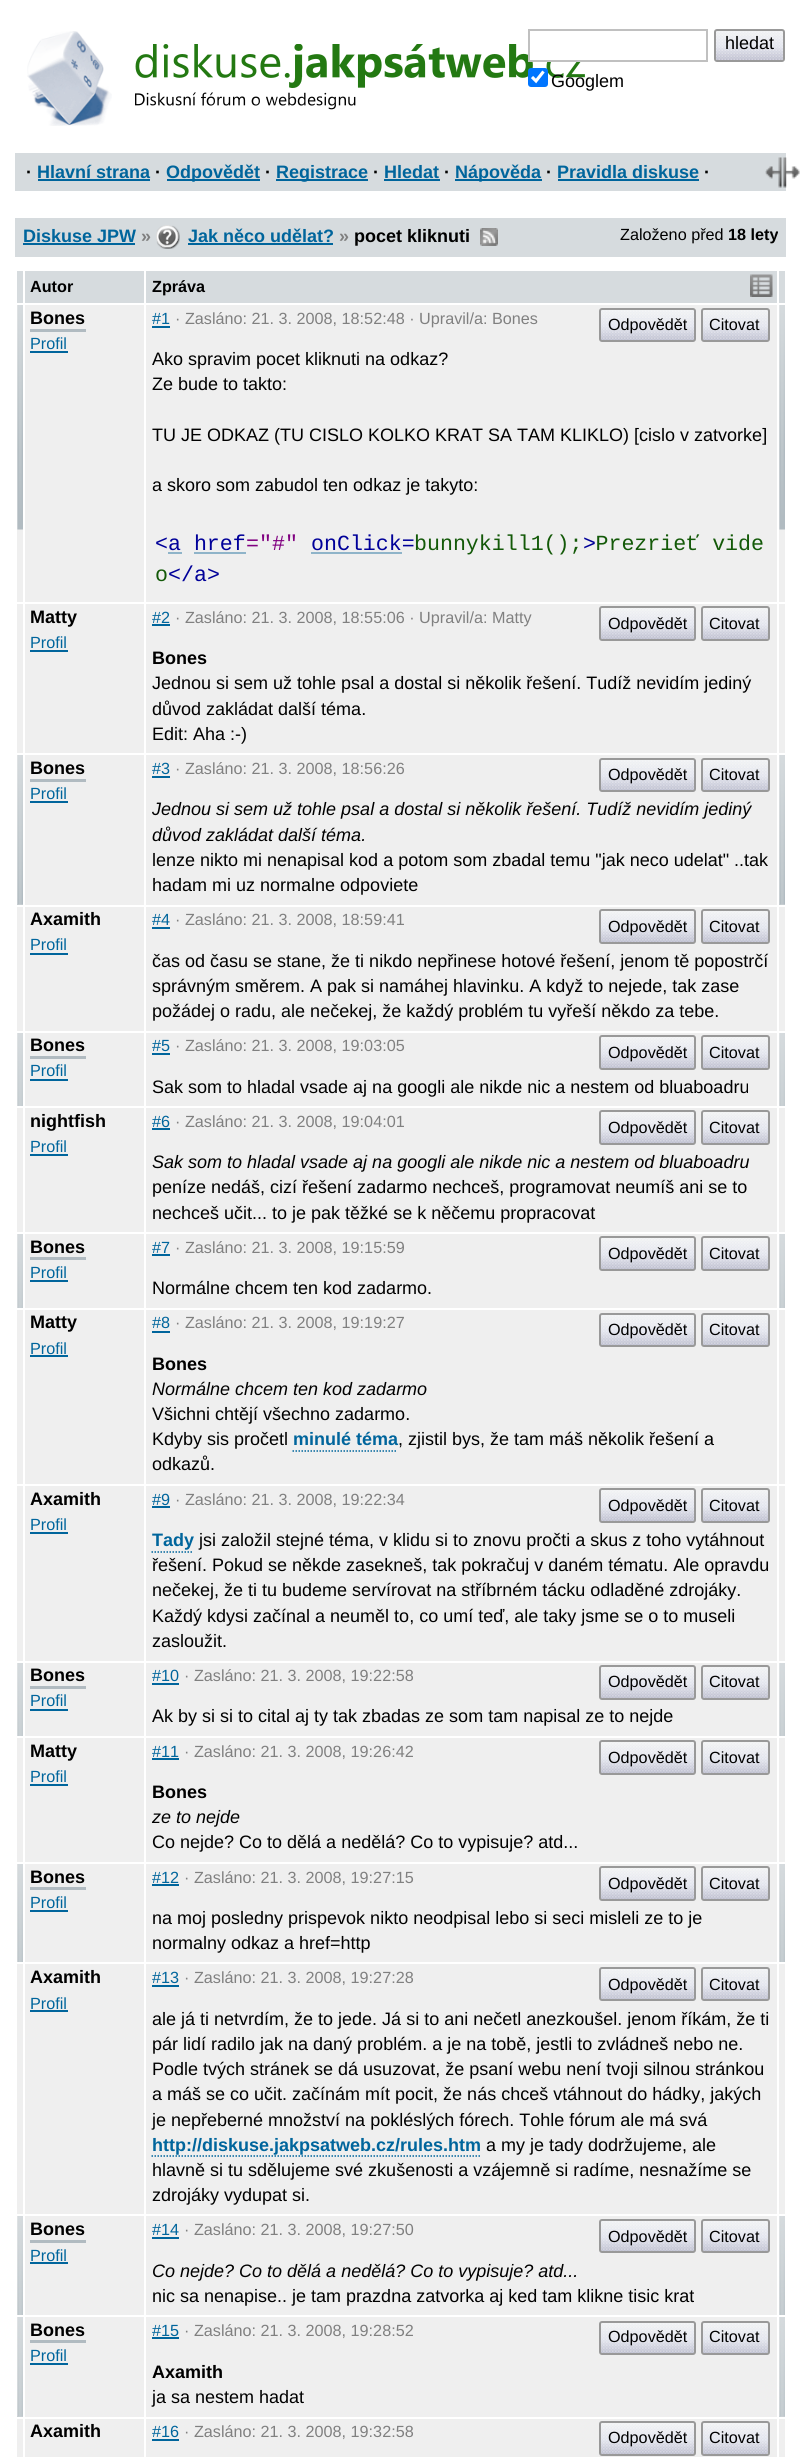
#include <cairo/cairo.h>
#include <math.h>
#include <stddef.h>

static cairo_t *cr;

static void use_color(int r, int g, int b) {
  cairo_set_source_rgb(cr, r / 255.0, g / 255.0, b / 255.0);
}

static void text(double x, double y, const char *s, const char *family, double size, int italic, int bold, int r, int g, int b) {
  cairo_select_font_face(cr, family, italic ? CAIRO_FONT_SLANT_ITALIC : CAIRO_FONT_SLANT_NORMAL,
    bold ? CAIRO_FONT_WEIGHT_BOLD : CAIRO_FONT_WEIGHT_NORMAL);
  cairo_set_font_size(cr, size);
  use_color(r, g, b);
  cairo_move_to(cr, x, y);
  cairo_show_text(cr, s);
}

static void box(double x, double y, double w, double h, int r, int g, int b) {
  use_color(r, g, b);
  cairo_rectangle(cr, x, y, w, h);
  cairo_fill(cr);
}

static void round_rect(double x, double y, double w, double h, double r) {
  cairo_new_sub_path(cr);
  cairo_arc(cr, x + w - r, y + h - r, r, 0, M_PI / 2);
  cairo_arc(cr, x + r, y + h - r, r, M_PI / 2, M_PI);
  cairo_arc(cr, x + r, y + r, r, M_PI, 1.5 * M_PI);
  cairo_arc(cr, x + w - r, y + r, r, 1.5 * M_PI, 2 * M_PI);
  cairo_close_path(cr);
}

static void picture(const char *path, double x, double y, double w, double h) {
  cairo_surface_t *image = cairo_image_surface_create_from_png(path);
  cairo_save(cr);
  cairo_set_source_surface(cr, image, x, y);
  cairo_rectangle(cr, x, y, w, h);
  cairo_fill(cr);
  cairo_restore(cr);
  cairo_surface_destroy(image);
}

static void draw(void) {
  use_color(255, 255, 255);
  cairo_paint(cr);
  picture("img_01.png", 27, 31, 85, 95);
  picture("img_02.png", 135, 44, 450, 66);
  box(530, 54, 55, 6, 255, 255, 255);
  cairo_rectangle(cr, 529, 30, 178, 31);
  use_color(192, 192, 192);
  cairo_stroke(cr);
  use_color(214, 219, 222);
  round_rect(716, 30, 67, 30, 1.5);
  cairo_fill(cr);
  picture("img_03.png", 716, 31, 67, 29);
  round_rect(715, 30, 69, 31, 2);
  use_color(153, 153, 153);
  cairo_stroke(cr);
  use_color(0, 117, 255);
  round_rect(528, 68, 20, 19, 3);
  cairo_fill(cr);
  cairo_new_path(cr);
  cairo_move_to(cr, 532, 77);
  cairo_line_to(cr, 536, 81);
  cairo_line_to(cr, 543.5, 71.5);
  use_color(255, 255, 255);
  cairo_set_line_width(cr, 3.1);
  cairo_stroke(cr);
  box(15, 153, 771, 38, 214, 219, 222);
  box(38, 179, 112, 2, 0, 101, 156);
  box(167, 179, 93, 2, 0, 101, 156);
  box(276, 179, 92, 2, 0, 101, 156);
  box(384, 179, 56, 2, 0, 101, 156);
  box(455, 179, 87, 2, 0, 101, 156);
  box(558, 179, 141, 2, 0, 101, 156);
  picture("img_04.png", 765, 157, 35, 31);
  box(15, 218, 771, 39, 214, 219, 222);
  box(23, 243, 112, 2, 0, 101, 156);
  picture("img_05.png", 156, 225, 24, 24);
  box(188, 243, 145, 2, 0, 101, 156);
  picture("img_06.png", 480, 228, 18, 18);
  box(146, 271, 631, 32, 214, 219, 222);
  picture("img_07.png", 750, 274, 23, 23);
  box(17, 270, 6, 33, 214, 219, 222);
  box(779, 270, 6, 33, 214, 219, 222);
  box(15, 270, 771, 1, 255, 255, 255);
  box(25, 271, 119, 32, 214, 219, 222);
  box(25, 305, 752, 297, 239, 239, 239);
  picture("img_08.png", 17, 305, 6, 297);
  box(30, 329, 56, 3, 177, 187, 193);
  box(30, 351, 38, 2, 0, 101, 156);
  box(152, 326, 18, 2, 0, 101, 156);
  box(601, 310, 93, 30, 214, 219, 222);
  picture("img_09.png", 601, 310, 93, 30);
  round_rect(600, 309, 95, 32, 2);
  use_color(153, 153, 153);
  cairo_set_line_width(cr, 2);
  cairo_stroke(cr);
  box(703, 310, 65, 30, 214, 219, 222);
  picture("img_10.png", 703, 310, 65, 30);
  round_rect(702, 309, 67, 32, 2);
  use_color(153, 153, 153);
  cairo_stroke(cr);
  box(168, 552, 14, 2, 143, 180, 201);
  box(194, 552, 52, 2, 143, 180, 201);
  box(311, 552, 91, 2, 143, 180, 201);
  picture("img_08.png", 779, 305, 6, 297);
  box(17, 604, 768, 149, 239, 239, 239);
  box(23, 602, 2, 153, 255, 255, 255);
  box(30, 650, 38, 2, 0, 101, 156);
  box(152, 624, 18, 2, 0, 101, 156);
  box(601, 608, 93, 31, 214, 219, 222);
  picture("img_11.png", 601, 608, 93, 31);
  round_rect(600, 607, 95, 33, 2);
  use_color(153, 153, 153);
  cairo_stroke(cr);
  use_color(214, 219, 222);
  round_rect(702, 608, 66, 31, 1.5);
  cairo_fill(cr);
  picture("img_12.png", 703, 608, 65, 31);
  round_rect(702, 607, 67, 33, 2);
  use_color(153, 153, 153);
  cairo_stroke(cr);
  box(777, 602, 2, 153, 255, 255, 255);
  box(25, 755, 752, 150, 239, 239, 239);
  box(17, 904, 6, 1, 177, 187, 193);
  picture("img_13.png", 17, 755, 6, 150);
  box(30, 779, 56, 3, 177, 187, 193);
  box(30, 801, 38, 2, 0, 101, 156);
  box(152, 776, 18, 2, 0, 101, 156);
  box(601, 760, 93, 30, 214, 219, 222);
  picture("img_09.png", 601, 760, 93, 30);
  round_rect(600, 759, 95, 32, 2);
  use_color(153, 153, 153);
  cairo_stroke(cr);
  box(703, 760, 65, 30, 214, 219, 222);
  picture("img_10.png", 703, 760, 65, 30);
  round_rect(702, 759, 67, 32, 2);
  use_color(153, 153, 153);
  cairo_stroke(cr);
  box(779, 904, 6, 1, 177, 187, 193);
  picture("img_13.png", 779, 755, 6, 150);
  box(17, 907, 768, 124, 239, 239, 239);
  picture("img_14.png", 17, 1030, 6, 76);
  box(15, 1031, 9, 2, 255, 255, 255);
  box(23, 905, 2, 127, 255, 255, 255);
  box(30, 953, 38, 2, 0, 101, 156);
  box(152, 927, 18, 2, 0, 101, 156);
  box(601, 911, 93, 31, 214, 219, 222);
  picture("img_11.png", 601, 911, 93, 31);
  round_rect(600, 910, 95, 33, 2);
  use_color(153, 153, 153);
  cairo_stroke(cr);
  use_color(214, 219, 222);
  round_rect(702, 911, 66, 31, 1.5);
  cairo_fill(cr);
  picture("img_12.png", 703, 911, 65, 31);
  round_rect(702, 910, 67, 33, 2);
  use_color(153, 153, 153);
  cairo_stroke(cr);
  box(777, 905, 2, 127, 255, 255, 255);
  box(25, 1033, 752, 73, 239, 239, 239);
  box(30, 1056, 56, 3, 177, 187, 193);
  box(30, 1079, 38, 2, 0, 101, 156);
  box(152, 1053, 18, 2, 0, 101, 156);
  box(601, 1037, 93, 31, 214, 219, 222);
  picture("img_11.png", 601, 1037, 93, 31);
  round_rect(600, 1036, 95, 33, 2);
  use_color(153, 153, 153);
  cairo_stroke(cr);
  use_color(214, 219, 222);
  round_rect(702, 1037, 66, 31, 1.5);
  cairo_fill(cr);
  picture("img_12.png", 703, 1037, 65, 31);
  round_rect(702, 1036, 67, 33, 2);
  use_color(153, 153, 153);
  cairo_stroke(cr);
  picture("img_15.png", 779, 1033, 6, 73);
  box(17, 1108, 768, 124, 239, 239, 239);
  box(23, 1106, 2, 127, 255, 255, 255);
  box(30, 1154, 38, 2, 0, 101, 156);
  box(152, 1128, 18, 2, 0, 101, 156);
  box(601, 1112, 93, 31, 214, 219, 222);
  picture("img_11.png", 601, 1112, 93, 31);
  round_rect(600, 1111, 95, 33, 2);
  use_color(153, 153, 153);
  cairo_stroke(cr);
  use_color(214, 219, 222);
  round_rect(702, 1112, 66, 31, 1.5);
  cairo_fill(cr);
  picture("img_12.png", 703, 1112, 65, 31);
  round_rect(702, 1111, 67, 33, 2);
  use_color(153, 153, 153);
  cairo_stroke(cr);
  box(777, 1106, 2, 127, 255, 255, 255);
  box(25, 1234, 752, 74, 239, 239, 239);
  picture("img_16.png", 17, 1234, 6, 74);
  box(30, 1257, 56, 3, 177, 187, 193);
  box(30, 1280, 38, 2, 0, 101, 156);
  box(152, 1254, 18, 2, 0, 101, 156);
  box(601, 1238, 93, 31, 214, 219, 222);
  picture("img_11.png", 601, 1238, 93, 31);
  round_rect(600, 1237, 95, 33, 2);
  use_color(153, 153, 153);
  cairo_stroke(cr);
  use_color(214, 219, 222);
  round_rect(702, 1238, 66, 31, 1.5);
  cairo_fill(cr);
  picture("img_12.png", 703, 1238, 65, 31);
  round_rect(702, 1237, 67, 33, 2);
  use_color(153, 153, 153);
  cairo_stroke(cr);
  picture("img_16.png", 779, 1234, 6, 74);
  box(17, 1310, 768, 174, 239, 239, 239);
  box(30, 1355, 38, 2, 0, 101, 156);
  box(152, 1331, 18, 2, 0, 101, 156);
  box(601, 1315, 93, 30, 214, 219, 222);
  picture("img_09.png", 601, 1315, 93, 30);
  round_rect(600, 1314, 95, 32, 2);
  use_color(153, 153, 153);
  cairo_stroke(cr);
  box(703, 1315, 65, 30, 214, 219, 222);
  picture("img_10.png", 703, 1315, 65, 30);
  round_rect(702, 1314, 67, 32, 2);
  use_color(153, 153, 153);
  cairo_stroke(cr);
  cairo_new_path(cr);
  cairo_move_to(cr, 292.5, 1451);
  cairo_line_to(cr, 397.5, 1451);
  use_color(0, 101, 156);
  cairo_set_line_width(cr, 1.5);
  cairo_set_dash(cr, (double[]){1.5, 1.5}, 2, 0);
  cairo_stroke(cr);
  box(17, 1486, 768, 175, 239, 239, 239);
  picture("img_14.png", 17, 1660, 6, 76);
  box(15, 1661, 9, 2, 255, 255, 255);
  box(23, 1308, 2, 354, 255, 255, 255);
  box(30, 1532, 38, 2, 0, 101, 156);
  box(152, 1506, 18, 2, 0, 101, 156);
  box(601, 1490, 93, 31, 214, 219, 222);
  picture("img_11.png", 601, 1490, 93, 31);
  round_rect(600, 1489, 95, 33, 2);
  use_color(153, 153, 153);
  cairo_set_line_width(cr, 2);
  cairo_set_dash(cr, NULL, 0, 0);
  cairo_stroke(cr);
  use_color(214, 219, 222);
  round_rect(702, 1490, 66, 31, 1.5);
  cairo_fill(cr);
  picture("img_12.png", 703, 1490, 65, 31);
  round_rect(702, 1489, 67, 33, 2);
  use_color(153, 153, 153);
  cairo_stroke(cr);
  cairo_new_path(cr);
  cairo_move_to(cr, 151.5, 1552);
  cairo_line_to(cr, 193.5, 1552);
  use_color(0, 101, 156);
  cairo_set_line_width(cr, 1.5);
  cairo_set_dash(cr, (double[]){1.5, 1.5}, 2, 0);
  cairo_stroke(cr);
  box(777, 1308, 2, 354, 255, 255, 255);
  box(25, 1663, 752, 73, 239, 239, 239);
  box(30, 1686, 56, 3, 177, 187, 193);
  box(30, 1709, 38, 2, 0, 101, 156);
  box(152, 1683, 27, 2, 0, 101, 156);
  box(601, 1667, 93, 31, 214, 219, 222);
  picture("img_11.png", 601, 1667, 93, 31);
  round_rect(600, 1666, 95, 33, 2);
  use_color(153, 153, 153);
  cairo_set_line_width(cr, 2);
  cairo_set_dash(cr, NULL, 0, 0);
  cairo_stroke(cr);
  use_color(214, 219, 222);
  round_rect(702, 1667, 66, 31, 1.5);
  cairo_fill(cr);
  picture("img_12.png", 703, 1667, 65, 31);
  round_rect(702, 1666, 67, 33, 2);
  use_color(153, 153, 153);
  cairo_stroke(cr);
  picture("img_15.png", 779, 1663, 6, 73);
  box(17, 1738, 768, 124, 239, 239, 239);
  box(23, 1736, 2, 127, 255, 255, 255);
  box(30, 1784, 38, 2, 0, 101, 156);
  box(152, 1758, 27, 2, 0, 101, 156);
  box(601, 1742, 93, 31, 214, 219, 222);
  picture("img_11.png", 601, 1742, 93, 31);
  round_rect(600, 1741, 95, 33, 2);
  use_color(153, 153, 153);
  cairo_stroke(cr);
  use_color(214, 219, 222);
  round_rect(702, 1742, 66, 31, 1.5);
  cairo_fill(cr);
  picture("img_12.png", 703, 1742, 65, 31);
  round_rect(702, 1741, 67, 33, 2);
  use_color(153, 153, 153);
  cairo_stroke(cr);
  box(777, 1736, 2, 127, 255, 255, 255);
  box(25, 1864, 752, 98, 239, 239, 239);
  picture("img_17.png", 17, 1864, 6, 98);
  box(30, 1887, 56, 3, 177, 187, 193);
  box(30, 1910, 38, 2, 0, 101, 156);
  box(152, 1884, 27, 2, 0, 101, 156);
  box(601, 1868, 93, 31, 214, 219, 222);
  picture("img_11.png", 601, 1868, 93, 31);
  round_rect(600, 1867, 95, 33, 2);
  use_color(153, 153, 153);
  cairo_stroke(cr);
  use_color(214, 219, 222);
  round_rect(702, 1868, 66, 31, 1.5);
  cairo_fill(cr);
  picture("img_12.png", 703, 1868, 65, 31);
  round_rect(702, 1867, 67, 33, 2);
  use_color(153, 153, 153);
  cairo_stroke(cr);
  picture("img_17.png", 779, 1864, 6, 98);
  box(17, 1964, 768, 250, 239, 239, 239);
  box(23, 1962, 2, 254, 255, 255, 255);
  box(30, 2010, 38, 2, 0, 101, 156);
  box(152, 1985, 27, 2, 0, 101, 156);
  box(601, 1969, 93, 30, 214, 219, 222);
  picture("img_09.png", 601, 1969, 93, 30);
  round_rect(600, 1968, 95, 32, 2);
  use_color(153, 153, 153);
  cairo_stroke(cr);
  box(703, 1969, 65, 30, 214, 219, 222);
  picture("img_10.png", 703, 1969, 65, 30);
  round_rect(702, 1968, 67, 32, 2);
  use_color(153, 153, 153);
  cairo_stroke(cr);
  cairo_new_path(cr);
  cairo_move_to(cr, 151.5, 2156);
  cairo_line_to(cr, 481.5, 2156);
  use_color(0, 101, 156);
  cairo_set_line_width(cr, 1.5);
  cairo_set_dash(cr, (double[]){1.5, 1.5}, 2, 0);
  cairo_stroke(cr);
  box(777, 1962, 2, 254, 255, 255, 255);
  box(25, 2216, 752, 99, 239, 239, 239);
  picture("img_18.png", 17, 2216, 6, 99);
  box(30, 2240, 56, 3, 177, 187, 193);
  box(30, 2262, 38, 2, 0, 101, 156);
  box(152, 2237, 27, 2, 0, 101, 156);
  box(601, 2221, 93, 30, 214, 219, 222);
  picture("img_09.png", 601, 2221, 93, 30);
  round_rect(600, 2220, 95, 32, 2);
  use_color(153, 153, 153);
  cairo_set_line_width(cr, 2);
  cairo_set_dash(cr, NULL, 0, 0);
  cairo_stroke(cr);
  box(703, 2221, 65, 30, 214, 219, 222);
  picture("img_10.png", 703, 2221, 65, 30);
  round_rect(702, 2220, 67, 32, 2);
  use_color(153, 153, 153);
  cairo_stroke(cr);
  picture("img_18.png", 779, 2216, 6, 99);
  box(25, 2317, 752, 100, 239, 239, 239);
  box(17, 2416, 6, 1, 177, 187, 193);
  picture("img_19.png", 17, 2317, 6, 100);
  box(30, 2340, 56, 3, 177, 187, 193);
  box(30, 2363, 38, 2, 0, 101, 156);
  box(152, 2337, 27, 2, 0, 101, 156);
  box(601, 2323, 93, 30, 214, 219, 222);
  picture("img_09.png", 601, 2323, 93, 30);
  round_rect(600, 2322, 95, 32, 2);
  use_color(153, 153, 153);
  cairo_stroke(cr);
  box(703, 2323, 65, 30, 214, 219, 222);
  picture("img_10.png", 703, 2323, 65, 30);
  round_rect(702, 2322, 67, 32, 2);
  use_color(153, 153, 153);
  cairo_stroke(cr);
  box(779, 2416, 6, 1, 177, 187, 193);
  picture("img_19.png", 779, 2317, 6, 100);
  box(17, 2419, 768, 38, 239, 239, 239);
  box(23, 2417, 2, 40, 255, 255, 255);
  box(144, 303, 2, 2154, 255, 255, 255);
  box(152, 2439, 27, 2, 0, 101, 156);
  box(601, 2423, 93, 31, 214, 219, 222);
  picture("img_11.png", 601, 2423, 93, 31);
  round_rect(600, 2422, 95, 33, 2);
  use_color(153, 153, 153);
  cairo_stroke(cr);
  use_color(214, 219, 222);
  round_rect(702, 2423, 66, 31, 1.5);
  cairo_fill(cr);
  picture("img_12.png", 703, 2423, 65, 31);
  round_rect(702, 2422, 67, 33, 2);
  use_color(153, 153, 153);
  cairo_stroke(cr);
  box(777, 2417, 2, 40, 255, 255, 255);
  text(725, 49, "hledat", "Liberation Sans", 18, 0, 0, 0, 0, 0);
  text(551, 87, "Googlem", "Liberation Sans", 18, 0, 0, 0, 0, 0);
  text(26, 178, "·", "Liberation Sans", 18, 0, 1, 0, 0, 0);
  text(37, 178, "Hlavní strana", "Liberation Sans", 18, 0, 1, 0, 101, 156);
  text(155, 178, "·", "Liberation Sans", 18, 0, 1, 0, 0, 0);
  text(166, 178, "Odpovědět", "Liberation Sans", 18, 0, 1, 0, 101, 156);
  text(265, 178, "·", "Liberation Sans", 18, 0, 1, 0, 0, 0);
  text(276, 178, "Registrace", "Liberation Sans", 18, 0, 1, 0, 101, 156);
  text(373, 178, "·", "Liberation Sans", 18, 0, 1, 0, 0, 0);
  text(384, 178, "Hledat", "Liberation Sans", 18, 0, 1, 0, 101, 156);
  text(444, 178, "·", "Liberation Sans", 18, 0, 1, 0, 0, 0);
  text(455, 178, "Nápověda", "Liberation Sans", 18, 0, 1, 0, 101, 156);
  text(546, 178, "·", "Liberation Sans", 18, 0, 1, 0, 0, 0);
  text(557, 178, "Pravidla diskuse", "Liberation Sans", 18, 0, 1, 0, 101, 156);
  text(704, 178, "·", "Liberation Sans", 18, 0, 1, 0, 0, 0);
  text(23, 242, "Diskuse JPW", "Liberation Sans", 18, 0, 1, 0, 101, 156);
  text(141, 242, "»", "Liberation Sans", 18, 0, 1, 128, 128, 128);
  text(188, 242, "Jak něco udělat?", "Liberation Sans", 18, 0, 1, 0, 101, 156);
  text(339, 242, "»", "Liberation Sans", 18, 0, 1, 128, 128, 128);
  text(354, 242, "pocet kliknuti", "Liberation Sans", 18, 0, 1, 0, 0, 0);
  text(620, 240, "Založeno před", "Liberation Sans", 16.2, 0, 0, 0, 0, 0);
  text(728, 240, "18 lety", "Liberation Sans", 16.2, 0, 1, 0, 0, 0);
  text(30, 292, "Autor", "Liberation Sans", 16.2, 0, 1, 0, 0, 0);
  text(152, 292, "Zpráva", "Liberation Sans", 16.2, 0, 1, 0, 0, 0);
  text(30, 324, "Bones", "Liberation Sans", 18, 0, 1, 0, 0, 0);
  text(30, 349, "Profil", "Liberation Sans", 16.2, 0, 0, 0, 101, 156);
  text(152, 324, "#1", "Liberation Sans", 16.2, 0, 0, 0, 101, 156);
  text(175, 324, "· Zasláno: 21. 3. 2008, 18:52:48 · Upravil/a: Bones", "Liberation Sans", 16.2, 0, 0, 128, 128, 128);
  text(608, 330, "Odpovědět", "Liberation Sans", 16.2, 0, 0, 0, 0, 0);
  text(709, 330, "Citovat", "Liberation Sans", 16.2, 0, 0, 0, 0, 0);
  text(152, 365, "Ako spravim pocet kliknuti na odkaz?", "Liberation Sans", 18, 0, 0, 0, 0, 0);
  text(152, 390, "Ze bude to takto:", "Liberation Sans", 18, 0, 0, 0, 0, 0);
  text(152, 441, "TU JE ODKAZ (TU CISLO KOLKO KRAT SA TAM KLIKLO) [cislo v zatvorke]", "Liberation Sans", 18, 0, 0, 0, 0, 0);
  text(152, 491, "a skoro som zabudol ten odkaz je takyto:", "Liberation Sans", 18, 0, 0, 0, 0, 0);
  text(155, 550, "<a href", "Liberation Mono", 21.6, 0, 0, 0, 0, 153);
  text(246, 550, "=\"#\"", "Liberation Mono", 21.6, 0, 0, 128, 0, 128);
  text(311, 550, "onClick=", "Liberation Mono", 21.6, 0, 0, 0, 0, 153);
  text(414, 550, "bunnykill1(); Prezrieť vide", "Liberation Mono", 21.6, 0, 0, 19, 89, 8);
  text(583, 550, ">", "Liberation Mono", 21.6, 0, 0, 0, 0, 153);
  text(155, 581, "o", "Liberation Mono", 21.6, 0, 0, 19, 89, 8);
  text(168, 581, "</a>", "Liberation Mono", 21.6, 0, 0, 0, 0, 153);
  text(30, 623, "Matty", "Liberation Sans", 18, 0, 1, 0, 0, 0);
  text(30, 648, "Profil", "Liberation Sans", 16.2, 0, 0, 0, 101, 156);
  text(152, 623, "#2", "Liberation Sans", 16.2, 0, 0, 0, 101, 156);
  text(175, 623, "· Zasláno: 21. 3. 2008, 18:55:06 · Upravil/a: Matty", "Liberation Sans", 16.2, 0, 0, 128, 128, 128);
  text(608, 629, "Odpovědět", "Liberation Sans", 16.2, 0, 0, 0, 0, 0);
  text(709, 629, "Citovat", "Liberation Sans", 16.2, 0, 0, 0, 0, 0);
  text(152, 664, "Bones", "Liberation Sans", 18, 0, 1, 0, 0, 0);
  text(152, 689, "Jednou si sem už tohle psal a dostal si několik řešení. Tudíž nevidím jediný", "Liberation Sans", 18, 0, 0, 0, 0, 0);
  text(152, 715, "důvod zakládat další téma.", "Liberation Sans", 18, 0, 0, 0, 0, 0);
  text(152, 740, "Edit: Aha :-)", "Liberation Sans", 18, 0, 0, 0, 0, 0);
  text(30, 774, "Bones", "Liberation Sans", 18, 0, 1, 0, 0, 0);
  text(30, 799, "Profil", "Liberation Sans", 16.2, 0, 0, 0, 101, 156);
  text(152, 774, "#3", "Liberation Sans", 16.2, 0, 0, 0, 101, 156);
  text(175, 774, "· Zasláno: 21. 3. 2008, 18:56:26", "Liberation Sans", 16.2, 0, 0, 128, 128, 128);
  text(608, 780, "Odpovědět", "Liberation Sans", 16.2, 0, 0, 0, 0, 0);
  text(709, 780, "Citovat", "Liberation Sans", 16.2, 0, 0, 0, 0, 0);
  text(152, 815, "Jednou si sem už tohle psal a dostal si několik řešení. Tudíž nevidím jediný", "Liberation Sans", 18, 1, 0, 0, 0, 0);
  text(152, 841, "důvod zakládat další téma.", "Liberation Sans", 18, 1, 0, 0, 0, 0);
  text(152, 866, "lenze nikto mi nenapisal kod a potom som zbadal temu \"jak neco udelat\" ..tak", "Liberation Sans", 18, 0, 0, 0, 0, 0);
  text(152, 891, "hadam mi uz normalne odpoviete", "Liberation Sans", 18, 0, 0, 0, 0, 0);
  text(30, 925, "Axamith", "Liberation Sans", 18, 0, 1, 0, 0, 0);
  text(30, 950, "Profil", "Liberation Sans", 16.2, 0, 0, 0, 101, 156);
  text(152, 925, "#4", "Liberation Sans", 16.2, 0, 0, 0, 101, 156);
  text(175, 925, "· Zasláno: 21. 3. 2008, 18:59:41", "Liberation Sans", 16.2, 0, 0, 128, 128, 128);
  text(608, 932, "Odpovědět", "Liberation Sans", 16.2, 0, 0, 0, 0, 0);
  text(709, 932, "Citovat", "Liberation Sans", 16.2, 0, 0, 0, 0, 0);
  text(152, 967, "čas od času se stane, že ti nikdo nepřinese hotové řešení, jenom tě popostrčí", "Liberation Sans", 18, 0, 0, 0, 0, 0);
  text(152, 992, "správným směrem. A pak si namáhej hlavinku. A když to nejede, tak zase", "Liberation Sans", 18, 0, 0, 0, 0, 0);
  text(152, 1017, "požádej o radu, ale nečekej, že každý problém tu vyřeší někdo za tebe.", "Liberation Sans", 18, 0, 0, 0, 0, 0);
  text(30, 1051, "Bones", "Liberation Sans", 18, 0, 1, 0, 0, 0);
  text(30, 1076, "Profil", "Liberation Sans", 16.2, 0, 0, 0, 101, 156);
  text(152, 1051, "#5", "Liberation Sans", 16.2, 0, 0, 0, 101, 156);
  text(175, 1051, "· Zasláno: 21. 3. 2008, 19:03:05", "Liberation Sans", 16.2, 0, 0, 128, 128, 128);
  text(608, 1058, "Odpovědět", "Liberation Sans", 16.2, 0, 0, 0, 0, 0);
  text(709, 1058, "Citovat", "Liberation Sans", 16.2, 0, 0, 0, 0, 0);
  text(152, 1093, "Sak som to hladal vsade aj na googli ale nikde nic a nestem od bluaboadru", "Liberation Sans", 18, 0, 0, 0, 0, 0);
  text(30, 1127, "nightfish", "Liberation Sans", 18, 0, 1, 0, 0, 0);
  text(30, 1152, "Profil", "Liberation Sans", 16.2, 0, 0, 0, 101, 156);
  text(152, 1127, "#6", "Liberation Sans", 16.2, 0, 0, 0, 101, 156);
  text(175, 1127, "· Zasláno: 21. 3. 2008, 19:04:01", "Liberation Sans", 16.2, 0, 0, 128, 128, 128);
  text(608, 1133, "Odpovědět", "Liberation Sans", 16.2, 0, 0, 0, 0, 0);
  text(709, 1133, "Citovat", "Liberation Sans", 16.2, 0, 0, 0, 0, 0);
  text(152, 1168, "Sak som to hladal vsade aj na googli ale nikde nic a nestem od bluaboadru", "Liberation Sans", 18, 1, 0, 0, 0, 0);
  text(152, 1193, "peníze nedáš, cizí řešení zadarmo nechceš, programovat neumíš ani se to", "Liberation Sans", 18, 0, 0, 0, 0, 0);
  text(152, 1219, "nechceš učit... to je pak těžké se k něčemu propracovat", "Liberation Sans", 18, 0, 0, 0, 0, 0);
  text(30, 1253, "Bones", "Liberation Sans", 18, 0, 1, 0, 0, 0);
  text(30, 1278, "Profil", "Liberation Sans", 16.2, 0, 0, 0, 101, 156);
  text(152, 1253, "#7", "Liberation Sans", 16.2, 0, 0, 0, 101, 156);
  text(175, 1253, "· Zasláno: 21. 3. 2008, 19:15:59", "Liberation Sans", 16.2, 0, 0, 128, 128, 128);
  text(608, 1259, "Odpovědět", "Liberation Sans", 16.2, 0, 0, 0, 0, 0);
  text(709, 1259, "Citovat", "Liberation Sans", 16.2, 0, 0, 0, 0, 0);
  text(152, 1294, "Normálne chcem ten kod zadarmo.", "Liberation Sans", 18, 0, 0, 0, 0, 0);
  text(30, 1328, "Matty", "Liberation Sans", 18, 0, 1, 0, 0, 0);
  text(30, 1354, "Profil", "Liberation Sans", 16.2, 0, 0, 0, 101, 156);
  text(152, 1328, "#8", "Liberation Sans", 16.2, 0, 0, 0, 101, 156);
  text(175, 1328, "· Zasláno: 21. 3. 2008, 19:19:27", "Liberation Sans", 16.2, 0, 0, 128, 128, 128);
  text(608, 1335, "Odpovědět", "Liberation Sans", 16.2, 0, 0, 0, 0, 0);
  text(709, 1335, "Citovat", "Liberation Sans", 16.2, 0, 0, 0, 0, 0);
  text(152, 1370, "Bones", "Liberation Sans", 18, 0, 1, 0, 0, 0);
  text(152, 1395, "Normálne chcem ten kod zadarmo", "Liberation Sans", 18, 1, 0, 0, 0, 0);
  text(152, 1420, "Všichni chtějí všechno zadarmo.", "Liberation Sans", 18, 0, 0, 0, 0, 0);
  text(152, 1445, "Kdyby sis pročetl", "Liberation Sans", 18, 0, 0, 0, 0, 0);
  text(293, 1445, "minulé téma", "Liberation Sans", 18, 0, 1, 0, 101, 156);
  text(398, 1445, ", zjistil bys, že tam máš několik řešení a", "Liberation Sans", 18, 0, 0, 0, 0, 0);
  text(152, 1470, "odkazů.", "Liberation Sans", 18, 0, 0, 0, 0, 0);
  text(30, 1505, "Axamith", "Liberation Sans", 18, 0, 1, 0, 0, 0);
  text(30, 1530, "Profil", "Liberation Sans", 16.2, 0, 0, 0, 101, 156);
  text(152, 1505, "#9", "Liberation Sans", 16.2, 0, 0, 0, 101, 156);
  text(175, 1505, "· Zasláno: 21. 3. 2008, 19:22:34", "Liberation Sans", 16.2, 0, 0, 128, 128, 128);
  text(608, 1511, "Odpovědět", "Liberation Sans", 16.2, 0, 0, 0, 0, 0);
  text(709, 1511, "Citovat", "Liberation Sans", 16.2, 0, 0, 0, 0, 0);
  text(152, 1546, "Tady", "Liberation Sans", 18, 0, 1, 0, 101, 156);
  text(199, 1546, "jsi založil stejné téma, v klidu si to znovu pročti a skus z toho vytáhnout", "Liberation Sans", 18, 0, 0, 0, 0, 0);
  text(152, 1571, "řešení. Pokud se někde zasekneš, tak pokračuj v daném tématu. Ale opravdu", "Liberation Sans", 18, 0, 0, 0, 0, 0);
  text(152, 1596, "nečekej, že ti tu budeme servírovat na stříbrném tácku odladěné zdrojáky.", "Liberation Sans", 18, 0, 0, 0, 0, 0);
  text(152, 1622, "Každý kdysi začínal a neuměl to, co umí teď, ale taky jsme se o to museli", "Liberation Sans", 18, 0, 0, 0, 0, 0);
  text(152, 1647, "zasloužit.", "Liberation Sans", 18, 0, 0, 0, 0, 0);
  text(30, 1681, "Bones", "Liberation Sans", 18, 0, 1, 0, 0, 0);
  text(30, 1706, "Profil", "Liberation Sans", 16.2, 0, 0, 0, 101, 156);
  text(152, 1681, "#10", "Liberation Sans", 16.2, 0, 0, 0, 101, 156);
  text(184, 1681, "· Zasláno: 21. 3. 2008, 19:22:58", "Liberation Sans", 16.2, 0, 0, 128, 128, 128);
  text(608, 1687, "Odpovědět", "Liberation Sans", 16.2, 0, 0, 0, 0, 0);
  text(709, 1687, "Citovat", "Liberation Sans", 16.2, 0, 0, 0, 0, 0);
  text(152, 1722, "Ak by si si to cital aj ty tak zbadas ze som tam napisal ze to nejde", "Liberation Sans", 18, 0, 0, 0, 0, 0);
  text(30, 1757, "Matty", "Liberation Sans", 18, 0, 1, 0, 0, 0);
  text(30, 1782, "Profil", "Liberation Sans", 16.2, 0, 0, 0, 101, 156);
  text(152, 1757, "#11", "Liberation Sans", 16.2, 0, 0, 0, 101, 156);
  text(184, 1757, "· Zasláno: 21. 3. 2008, 19:26:42", "Liberation Sans", 16.2, 0, 0, 128, 128, 128);
  text(608, 1763, "Odpovědět", "Liberation Sans", 16.2, 0, 0, 0, 0, 0);
  text(709, 1763, "Citovat", "Liberation Sans", 16.2, 0, 0, 0, 0, 0);
  text(152, 1798, "Bones", "Liberation Sans", 18, 0, 1, 0, 0, 0);
  text(152, 1823, "ze to nejde", "Liberation Sans", 18, 1, 0, 0, 0, 0);
  text(152, 1848, "Co nejde? Co to dělá a nedělá? Co to vypisuje? atd...", "Liberation Sans", 18, 0, 0, 0, 0, 0);
  text(30, 1883, "Bones", "Liberation Sans", 18, 0, 1, 0, 0, 0);
  text(30, 1908, "Profil", "Liberation Sans", 16.2, 0, 0, 0, 101, 156);
  text(152, 1883, "#12", "Liberation Sans", 16.2, 0, 0, 0, 101, 156);
  text(184, 1883, "· Zasláno: 21. 3. 2008, 19:27:15", "Liberation Sans", 16.2, 0, 0, 128, 128, 128);
  text(608, 1889, "Odpovědět", "Liberation Sans", 16.2, 0, 0, 0, 0, 0);
  text(709, 1889, "Citovat", "Liberation Sans", 16.2, 0, 0, 0, 0, 0);
  text(152, 1924, "na moj posledny prispevok nikto neodpisal lebo si seci misleli ze to je", "Liberation Sans", 18, 0, 0, 0, 0, 0);
  text(152, 1949, "normalny odkaz a href=http", "Liberation Sans", 18, 0, 0, 0, 0, 0);
  text(30, 1983, "Axamith", "Liberation Sans", 18, 0, 1, 0, 0, 0);
  text(30, 2009, "Profil", "Liberation Sans", 16.2, 0, 0, 0, 101, 156);
  text(152, 1983, "#13", "Liberation Sans", 16.2, 0, 0, 0, 101, 156);
  text(184, 1983, "· Zasláno: 21. 3. 2008, 19:27:28", "Liberation Sans", 16.2, 0, 0, 128, 128, 128);
  text(608, 1990, "Odpovědět", "Liberation Sans", 16.2, 0, 0, 0, 0, 0);
  text(709, 1990, "Citovat", "Liberation Sans", 16.2, 0, 0, 0, 0, 0);
  text(152, 2025, "ale já ti netvrdím, že to jede. Já si to ani nečetl anezkoušel. jenom říkám, že ti", "Liberation Sans", 18, 0, 0, 0, 0, 0);
  text(152, 2050, "pár lidí radilo jak na daný problém. a je na tobě, jestli to zvládneš nebo ne.", "Liberation Sans", 18, 0, 0, 0, 0, 0);
  text(152, 2075, "Podle tvých stránek se dá usuzovat, že psaní webu není tvoji silnou stránkou", "Liberation Sans", 18, 0, 0, 0, 0, 0);
  text(152, 2100, "a máš se co učit. začínám mít pocit, že nás chceš vtáhnout do hádky, jakých", "Liberation Sans", 18, 0, 0, 0, 0, 0);
  text(152, 2126, "je nepřeberné množství na pokléslých fórech. Tohle fórum ale má svá", "Liberation Sans", 18, 0, 0, 0, 0, 0);
  text(152, 2151, "http://diskuse.jakpsatweb.cz/rules.htm", "Liberation Sans", 18, 0, 1, 0, 101, 156);
  text(486, 2151, "a my je tady dodržujeme, ale", "Liberation Sans", 18, 0, 0, 0, 0, 0);
  text(152, 2176, "hlavně si tu sdělujeme své zkušenosti a vzájemně si radíme, nesnažíme se", "Liberation Sans", 18, 0, 0, 0, 0, 0);
  text(152, 2201, "zdrojáky vydupat si.", "Liberation Sans", 18, 0, 0, 0, 0, 0);
  text(30, 2235, "Bones", "Liberation Sans", 18, 0, 1, 0, 0, 0);
  text(30, 2261, "Profil", "Liberation Sans", 16.2, 0, 0, 0, 101, 156);
  text(152, 2235, "#14", "Liberation Sans", 16.2, 0, 0, 0, 101, 156);
  text(184, 2235, "· Zasláno: 21. 3. 2008, 19:27:50", "Liberation Sans", 16.2, 0, 0, 128, 128, 128);
  text(608, 2242, "Odpovědět", "Liberation Sans", 16.2, 0, 0, 0, 0, 0);
  text(709, 2242, "Citovat", "Liberation Sans", 16.2, 0, 0, 0, 0, 0);
  text(152, 2277, "Co nejde? Co to dělá a nedělá? Co to vypisuje? atd...", "Liberation Sans", 18, 1, 0, 0, 0, 0);
  text(152, 2302, "nic sa nenapise.. je tam prazdna zatvorka aj ked tam klikne tisic krat", "Liberation Sans", 18, 0, 0, 0, 0, 0);
  text(30, 2336, "Bones", "Liberation Sans", 18, 0, 1, 0, 0, 0);
  text(30, 2361, "Profil", "Liberation Sans", 16.2, 0, 0, 0, 101, 156);
  text(152, 2336, "#15", "Liberation Sans", 16.2, 0, 0, 0, 101, 156);
  text(184, 2336, "· Zasláno: 21. 3. 2008, 19:28:52", "Liberation Sans", 16.2, 0, 0, 128, 128, 128);
  text(608, 2342, "Odpovědět", "Liberation Sans", 16.2, 0, 0, 0, 0, 0);
  text(709, 2342, "Citovat", "Liberation Sans", 16.2, 0, 0, 0, 0, 0);
  text(152, 2378, "Axamith", "Liberation Sans", 18, 0, 1, 0, 0, 0);
  text(152, 2403, "ja sa nestem hadat", "Liberation Sans", 18, 0, 0, 0, 0, 0);
  text(30, 2437, "Axamith", "Liberation Sans", 18, 0, 1, 0, 0, 0);
  text(152, 2437, "#16", "Liberation Sans", 16.2, 0, 0, 0, 101, 156);
  text(184, 2437, "· Zasláno: 21. 3. 2008, 19:32:58", "Liberation Sans", 16.2, 0, 0, 128, 128, 128);
  text(608, 2443, "Odpovědět", "Liberation Sans", 16.2, 0, 0, 0, 0, 0);
  text(709, 2443, "Citovat", "Liberation Sans", 16.2, 0, 0, 0, 0, 0);
}

int main(void) {
  cairo_surface_t *surface = cairo_image_surface_create(CAIRO_FORMAT_RGB24, 800, 2457);
  cr = cairo_create(surface);
  cairo_font_options_t *options = cairo_font_options_create();
  cairo_font_options_set_hint_metrics(options, CAIRO_HINT_METRICS_OFF);
  cairo_font_options_set_hint_style(options, CAIRO_HINT_STYLE_NONE);
  cairo_set_font_options(cr, options);
  cairo_set_miter_limit(cr, 4);
  draw();
  cairo_surface_write_to_png(surface, "out.png");
  cairo_font_options_destroy(options);
  cairo_destroy(cr);
  cairo_surface_destroy(surface);
  return 0;
}
